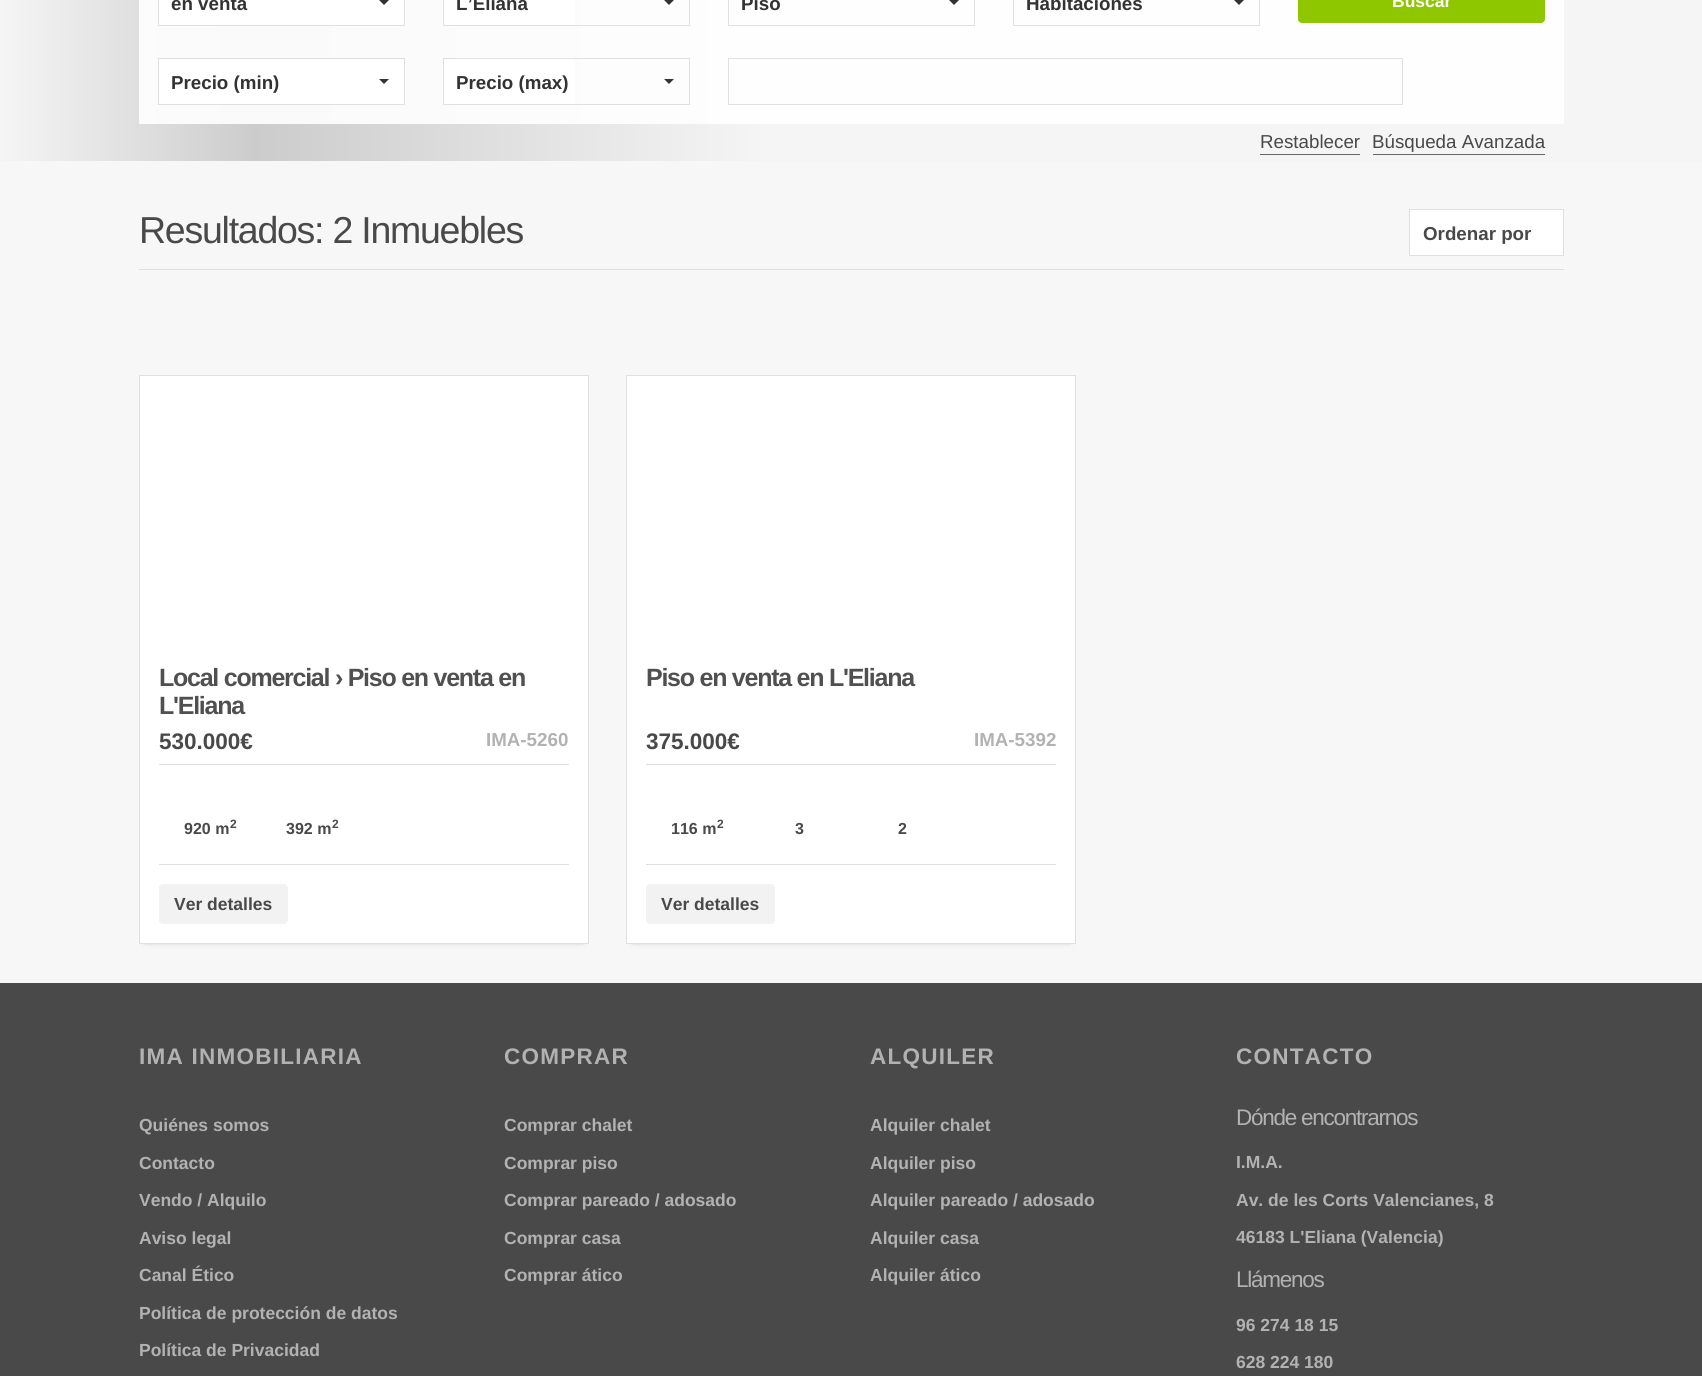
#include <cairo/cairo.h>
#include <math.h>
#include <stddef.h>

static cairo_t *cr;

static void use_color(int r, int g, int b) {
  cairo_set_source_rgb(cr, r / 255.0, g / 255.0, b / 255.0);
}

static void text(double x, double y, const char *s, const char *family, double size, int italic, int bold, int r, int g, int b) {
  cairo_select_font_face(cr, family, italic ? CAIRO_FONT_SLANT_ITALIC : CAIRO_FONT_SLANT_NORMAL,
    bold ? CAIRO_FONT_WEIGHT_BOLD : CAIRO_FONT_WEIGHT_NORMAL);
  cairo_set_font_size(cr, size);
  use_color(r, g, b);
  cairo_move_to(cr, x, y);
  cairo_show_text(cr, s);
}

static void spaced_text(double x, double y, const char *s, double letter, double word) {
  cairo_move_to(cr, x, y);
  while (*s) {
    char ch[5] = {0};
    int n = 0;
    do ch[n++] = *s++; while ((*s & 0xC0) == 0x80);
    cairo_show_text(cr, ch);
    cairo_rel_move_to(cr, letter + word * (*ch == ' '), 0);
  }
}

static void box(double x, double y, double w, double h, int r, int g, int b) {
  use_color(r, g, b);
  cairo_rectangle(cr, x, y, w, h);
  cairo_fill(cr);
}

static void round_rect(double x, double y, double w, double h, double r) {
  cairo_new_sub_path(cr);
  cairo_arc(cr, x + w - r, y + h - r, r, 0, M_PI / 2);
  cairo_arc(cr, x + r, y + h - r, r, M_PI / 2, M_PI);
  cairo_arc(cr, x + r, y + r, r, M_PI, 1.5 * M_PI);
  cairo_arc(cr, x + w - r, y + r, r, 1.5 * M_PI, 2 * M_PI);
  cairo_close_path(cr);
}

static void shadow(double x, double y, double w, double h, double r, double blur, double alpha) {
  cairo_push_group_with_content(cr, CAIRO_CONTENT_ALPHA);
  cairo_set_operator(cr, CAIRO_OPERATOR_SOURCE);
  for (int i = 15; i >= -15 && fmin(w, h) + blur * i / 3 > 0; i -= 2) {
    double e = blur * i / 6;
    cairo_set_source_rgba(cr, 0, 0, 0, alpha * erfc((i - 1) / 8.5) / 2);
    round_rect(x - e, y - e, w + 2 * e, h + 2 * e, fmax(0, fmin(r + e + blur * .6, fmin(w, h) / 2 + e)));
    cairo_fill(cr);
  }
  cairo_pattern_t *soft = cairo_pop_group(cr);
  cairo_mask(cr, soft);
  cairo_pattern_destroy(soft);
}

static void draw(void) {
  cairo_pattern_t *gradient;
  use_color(255, 255, 255);
  cairo_paint(cr);
  gradient = cairo_pattern_create_linear(0, 42, 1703, 42);
  cairo_pattern_add_color_stop_rgba(gradient, 0, 0.961, 0.961, 0.961, 1);
  cairo_pattern_add_color_stop_rgba(gradient, 0.15, 0.8, 0.8, 0.8, 1);
  cairo_pattern_add_color_stop_rgba(gradient, 0.45, 0.961, 0.961, 0.961, 1);
  cairo_set_source(cr, gradient);
  cairo_pattern_destroy(gradient);
  cairo_rectangle(cr, 0, 0, 1702, 161);
  cairo_fill(cr);
  gradient = cairo_pattern_create_linear(0, 42, 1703, 42);
  cairo_pattern_add_color_stop_rgba(gradient, 0, 0.996, 0.996, 0.996, 1);
  cairo_pattern_add_color_stop_rgba(gradient, 0.15, 0.98, 0.98, 0.98, 1);
  cairo_pattern_add_color_stop_rgba(gradient, 0.45, 0.996, 0.996, 0.996, 1);
  cairo_set_source(cr, gradient);
  cairo_pattern_destroy(gradient);
  cairo_rectangle(cr, 139, 0, 1425, 124);
  cairo_fill(cr);
  use_color(255, 255, 255);
  cairo_rectangle(cr, 158.5, -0.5, 246, 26);
  cairo_fill_preserve(cr);
  use_color(224, 224, 224);
  cairo_set_line_width(cr, 1);
  cairo_stroke(cr);
  use_color(51, 51, 51);
  cairo_new_path(cr);
  cairo_move_to(cr, 379, 0);
  cairo_line_to(cr, 389, 0);
  cairo_line_to(cr, 384, 5);
  cairo_close_path(cr);
  cairo_fill(cr);
  box(444, 0, 131, 25, 255, 255, 255);
  cairo_rectangle(cr, 443.5, -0.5, 246, 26);
  use_color(224, 224, 224);
  cairo_stroke(cr);
  use_color(51, 51, 51);
  cairo_new_path(cr);
  cairo_move_to(cr, 664, 0);
  cairo_line_to(cr, 674, 0);
  cairo_line_to(cr, 669, 5);
  cairo_close_path(cr);
  cairo_fill(cr);
  cairo_rectangle(cr, 728.5, -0.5, 246, 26);
  use_color(224, 224, 224);
  cairo_stroke(cr);
  use_color(51, 51, 51);
  cairo_new_path(cr);
  cairo_move_to(cr, 949, 0);
  cairo_line_to(cr, 959, 0);
  cairo_line_to(cr, 954, 5);
  cairo_close_path(cr);
  cairo_fill(cr);
  cairo_rectangle(cr, 1013.5, -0.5, 246, 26);
  use_color(224, 224, 224);
  cairo_stroke(cr);
  use_color(51, 51, 51);
  cairo_new_path(cr);
  cairo_move_to(cr, 1234, 0);
  cairo_line_to(cr, 1244, 0);
  cairo_line_to(cr, 1239, 5);
  cairo_close_path(cr);
  cairo_fill(cr);
  use_color(142, 199, 0);
  round_rect(1298, -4, 247, 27, 4);
  cairo_fill(cr);
  use_color(255, 255, 255);
  cairo_rectangle(cr, 158.5, 58.5, 246, 46);
  cairo_fill_preserve(cr);
  use_color(224, 224, 224);
  cairo_stroke(cr);
  use_color(51, 51, 51);
  cairo_new_path(cr);
  cairo_move_to(cr, 379, 79);
  cairo_line_to(cr, 389, 79);
  cairo_line_to(cr, 384, 84);
  cairo_close_path(cr);
  cairo_fill(cr);
  box(444, 59, 131, 45, 255, 255, 255);
  cairo_rectangle(cr, 443.5, 58.5, 246, 46);
  use_color(224, 224, 224);
  cairo_stroke(cr);
  use_color(51, 51, 51);
  cairo_new_path(cr);
  cairo_move_to(cr, 664, 79);
  cairo_line_to(cr, 674, 79);
  cairo_line_to(cr, 669, 84);
  cairo_close_path(cr);
  cairo_fill(cr);
  cairo_rectangle(cr, 728.5, 58.5, 674, 46);
  use_color(224, 224, 224);
  cairo_stroke(cr);
  box(1260, 154, 100, 1, 102, 102, 102);
  box(1373, 154, 172, 1, 102, 102, 102);
  box(0, 161, 1702, 822, 247, 247, 247);
  box(139, 269, 1425, 1, 224, 224, 224);
  use_color(255, 255, 255);
  cairo_rectangle(cr, 1409.5, 209.5, 154, 46);
  cairo_fill_preserve(cr);
  use_color(224, 224, 224);
  cairo_stroke(cr);
  use_color(200, 200, 200);
  shadow(145, 386, 438, 557, 0, 2.5, 1);
  use_color(255, 255, 255);
  cairo_rectangle(cr, 139.5, 375.5, 449, 568);
  cairo_fill_preserve(cr);
  use_color(224, 224, 224);
  cairo_stroke(cr);
  box(159, 764, 410, 1, 224, 224, 224);
  box(159, 864, 410, 1, 224, 224, 224);
  use_color(242, 242, 242);
  round_rect(159, 884, 129, 40, 4);
  cairo_fill(cr);
  use_color(200, 200, 200);
  shadow(633, 386, 437, 557, 0, 2.5, 1);
  use_color(255, 255, 255);
  cairo_rectangle(cr, 626.5, 375.5, 449, 568);
  cairo_fill_preserve(cr);
  use_color(224, 224, 224);
  cairo_stroke(cr);
  box(646, 764, 410, 1, 224, 224, 224);
  box(646, 864, 410, 1, 224, 224, 224);
  use_color(242, 242, 242);
  round_rect(646, 884, 129, 40, 4);
  cairo_fill(cr);
  box(0, 983, 1702, 393, 73, 73, 73);
  text(171, 10, "en venta", "Liberation Sans", 18.75, 0, 1, 51, 51, 51);
  text(456, 10, "L’Eliana", "Liberation Sans", 18.75, 0, 1, 51, 51, 51);
  text(741, 10, "Piso", "Liberation Sans", 18.75, 0, 1, 51, 51, 51);
  text(1026, 10, "Habitaciones", "Liberation Sans", 18.75, 0, 1, 51, 51, 51);
  text(1392, 7, "Buscar", "Liberation Sans", 17.5, 0, 1, 255, 255, 255);
  text(171, 89, "Precio (min)", "Liberation Sans", 18.75, 0, 1, 51, 51, 51);
  text(456, 89, "Precio (max)", "Liberation Sans", 18.75, 0, 1, 51, 51, 51);
  text(1260, 148, "Restablecer", "Liberation Sans", 18.75, 0, 0, 73, 73, 73);
  text(1372, 148, "Búsqueda Avanzada", "Liberation Sans", 18.75, 0, 0, 73, 73, 73);
  cairo_set_font_size(cr, 37.5);
  spaced_text(139, 243, "Resultados: 2 Inmuebles", -1.25, 0);
  text(1423, 240, "Ordenar por", "Liberation Sans", 18.75, 0, 1, 73, 73, 73);
  cairo_set_font_size(cr, 25);
  use_color(80, 80, 80);
  spaced_text(159, 686, "Local comercial › Piso en venta en", -1.25, 0);
  spaced_text(159, 714, "L'Eliana", -1.25, 0);
  text(159, 749, "530.000€", "Liberation Sans", 22.5, 0, 1, 73, 73, 73);
  text(486, 746, "IMA-5260", "Liberation Sans", 18.75, 0, 1, 178, 178, 178);
  text(184, 834, "920 m", "Liberation Sans", 16, 0, 1, 73, 73, 73);
  text(230, 828, "2", "Liberation Sans", 12, 0, 1, 73, 73, 73);
  text(286, 834, "392 m", "Liberation Sans", 16, 0, 1, 73, 73, 73);
  text(332, 828, "2", "Liberation Sans", 12, 0, 1, 73, 73, 73);
  text(174, 910, "Ver detalles", "Liberation Sans", 17.5, 0, 1, 73, 73, 73);
  cairo_set_font_size(cr, 25);
  use_color(80, 80, 80);
  spaced_text(646, 686, "Piso en venta en L'Eliana", -1.25, 0);
  text(646, 749, "375.000€", "Liberation Sans", 22.5, 0, 1, 73, 73, 73);
  text(974, 746, "IMA-5392", "Liberation Sans", 18.75, 0, 1, 178, 178, 178);
  text(671, 834, "116 m", "Liberation Sans", 16, 0, 1, 73, 73, 73);
  text(717, 828, "2", "Liberation Sans", 12, 0, 1, 73, 73, 73);
  text(795, 834, "3", "Liberation Sans", 16, 0, 1, 73, 73, 73);
  text(898, 834, "2", "Liberation Sans", 16, 0, 1, 73, 73, 73);
  text(661, 910, "Ver detalles", "Liberation Sans", 17.5, 0, 1, 73, 73, 73);
  cairo_set_font_size(cr, 22.5);
  use_color(178, 178, 178);
  spaced_text(139, 1064, "IMA INMOBILIARIA", 1.25, 0);
  text(139, 1131, "Quiénes somos", "Liberation Sans", 17.5, 0, 1, 178, 178, 178);
  text(139, 1169, "Contacto", "Liberation Sans", 17.5, 0, 1, 178, 178, 178);
  text(139, 1206, "Vendo / Alquilo", "Liberation Sans", 17.5, 0, 1, 178, 178, 178);
  text(139, 1244, "Aviso legal", "Liberation Sans", 17.5, 0, 1, 178, 178, 178);
  text(139, 1281, "Canal Ético", "Liberation Sans", 17.5, 0, 1, 178, 178, 178);
  text(139, 1319, "Política de protección de datos", "Liberation Sans", 17.5, 0, 1, 178, 178, 178);
  text(139, 1356, "Política de Privacidad", "Liberation Sans", 17.5, 0, 1, 178, 178, 178);
  cairo_set_font_size(cr, 22.5);
  spaced_text(504, 1064, "COMPRAR", 1.25, 0);
  text(504, 1131, "Comprar chalet", "Liberation Sans", 17.5, 0, 1, 178, 178, 178);
  text(504, 1169, "Comprar piso", "Liberation Sans", 17.5, 0, 1, 178, 178, 178);
  text(504, 1206, "Comprar pareado / adosado", "Liberation Sans", 17.5, 0, 1, 178, 178, 178);
  text(504, 1244, "Comprar casa", "Liberation Sans", 17.5, 0, 1, 178, 178, 178);
  text(504, 1281, "Comprar ático", "Liberation Sans", 17.5, 0, 1, 178, 178, 178);
  cairo_set_font_size(cr, 22.5);
  spaced_text(870, 1064, "ALQUILER", 1.25, 0);
  text(870, 1131, "Alquiler chalet", "Liberation Sans", 17.5, 0, 1, 178, 178, 178);
  text(870, 1169, "Alquiler piso", "Liberation Sans", 17.5, 0, 1, 178, 178, 178);
  text(870, 1206, "Alquiler pareado / adosado", "Liberation Sans", 17.5, 0, 1, 178, 178, 178);
  text(870, 1244, "Alquiler casa", "Liberation Sans", 17.5, 0, 1, 178, 178, 178);
  text(870, 1281, "Alquiler ático", "Liberation Sans", 17.5, 0, 1, 178, 178, 178);
  cairo_set_font_size(cr, 22.5);
  spaced_text(1236, 1064, "CONTACTO", 1.25, 0);
  cairo_select_font_face(cr, "Liberation Sans", CAIRO_FONT_SLANT_NORMAL, CAIRO_FONT_WEIGHT_NORMAL);
  spaced_text(1236, 1125, "Dónde encontrarnos", -1.25, 0);
  text(1236, 1168, "I.M.A.", "Liberation Sans", 17.5, 0, 1, 178, 178, 178);
  text(1236, 1206, "Av. de les Corts Valencianes, 8", "Liberation Sans", 17.5, 0, 1, 178, 178, 178);
  text(1236, 1243, "46183 L'Eliana (Valencia)", "Liberation Sans", 17.5, 0, 1, 178, 178, 178);
  cairo_select_font_face(cr, "Liberation Sans", CAIRO_FONT_SLANT_NORMAL, CAIRO_FONT_WEIGHT_NORMAL);
  cairo_set_font_size(cr, 22.5);
  spaced_text(1236, 1287, "Llámenos", -1.25, 0);
  text(1236, 1331, "96 274 18 15", "Liberation Sans", 17.5, 0, 1, 178, 178, 178);
  text(1236, 1368, "628 224 180", "Liberation Sans", 17.5, 0, 1, 178, 178, 178);
}

int main(void) {
  cairo_surface_t *surface = cairo_image_surface_create(CAIRO_FORMAT_RGB24, 1702, 1376);
  cr = cairo_create(surface);
  cairo_font_options_t *options = cairo_font_options_create();
  cairo_font_options_set_hint_metrics(options, CAIRO_HINT_METRICS_OFF);
  cairo_font_options_set_hint_style(options, CAIRO_HINT_STYLE_NONE);
  cairo_set_font_options(cr, options);
  cairo_set_miter_limit(cr, 4);
  draw();
  cairo_surface_write_to_png(surface, "out.png");
  cairo_font_options_destroy(options);
  cairo_destroy(cr);
  cairo_surface_destroy(surface);
  return 0;
}
